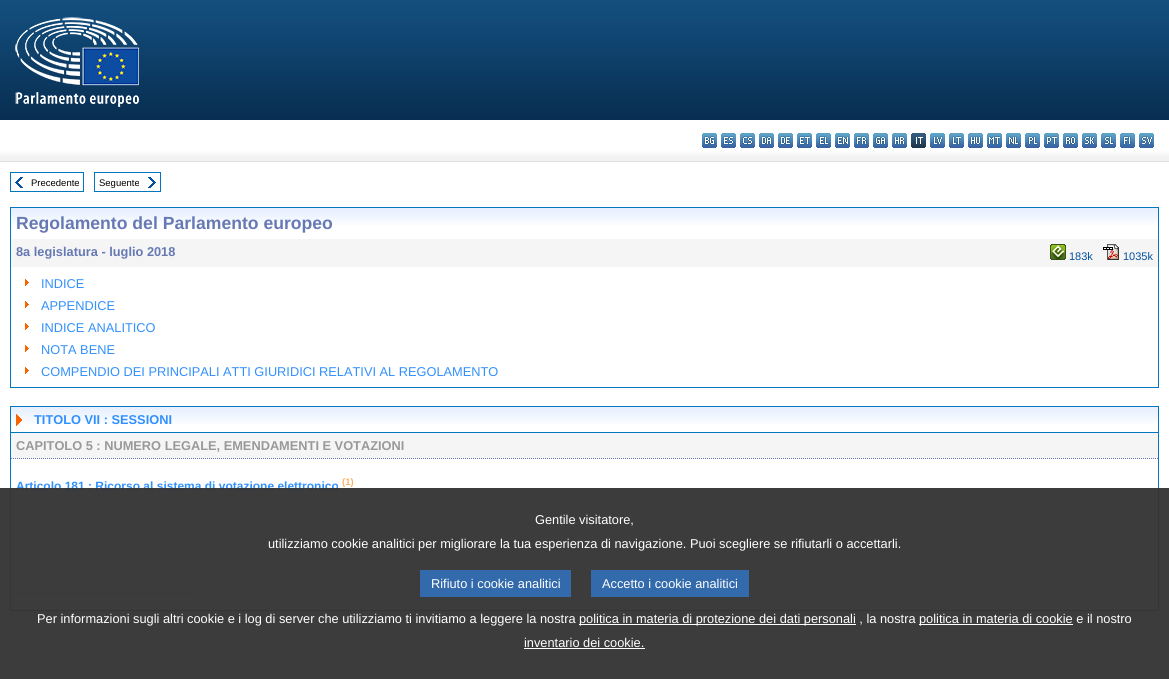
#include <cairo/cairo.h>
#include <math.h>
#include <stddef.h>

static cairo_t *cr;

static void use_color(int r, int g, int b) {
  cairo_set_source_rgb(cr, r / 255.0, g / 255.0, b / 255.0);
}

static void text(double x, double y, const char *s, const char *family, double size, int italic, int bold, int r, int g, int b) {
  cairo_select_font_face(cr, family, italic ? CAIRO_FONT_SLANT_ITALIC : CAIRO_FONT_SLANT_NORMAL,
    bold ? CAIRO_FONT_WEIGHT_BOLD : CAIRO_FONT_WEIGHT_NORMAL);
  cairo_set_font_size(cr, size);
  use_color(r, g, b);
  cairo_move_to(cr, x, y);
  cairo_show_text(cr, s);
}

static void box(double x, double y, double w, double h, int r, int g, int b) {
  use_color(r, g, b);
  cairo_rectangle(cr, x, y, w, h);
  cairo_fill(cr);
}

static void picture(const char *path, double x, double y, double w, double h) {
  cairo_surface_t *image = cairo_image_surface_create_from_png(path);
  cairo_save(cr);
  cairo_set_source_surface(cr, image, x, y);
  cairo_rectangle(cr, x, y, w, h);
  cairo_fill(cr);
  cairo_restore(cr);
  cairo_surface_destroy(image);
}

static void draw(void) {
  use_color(255, 255, 255);
  cairo_paint(cr);
  picture("img_01.png", 0, 0, 1169, 162);
  picture("img_02.png", 15, 17, 124, 90);
  picture("img_03.png", 702, 133, 15, 15);
  picture("img_04.png", 721, 133, 15, 15);
  picture("img_05.png", 740, 133, 15, 15);
  picture("img_06.png", 759, 133, 15, 15);
  picture("img_07.png", 778, 133, 15, 15);
  picture("img_08.png", 797, 133, 15, 15);
  picture("img_09.png", 816, 133, 15, 15);
  picture("img_10.png", 835, 133, 15, 15);
  picture("img_11.png", 854, 133, 15, 15);
  picture("img_12.png", 873, 133, 15, 15);
  picture("img_13.png", 892, 133, 15, 15);
  picture("img_14.png", 911, 133, 15, 15);
  picture("img_15.png", 930, 133, 15, 15);
  picture("img_16.png", 949, 133, 15, 15);
  picture("img_17.png", 968, 133, 15, 15);
  picture("img_18.png", 987, 133, 15, 15);
  picture("img_19.png", 1006, 133, 15, 15);
  picture("img_20.png", 1025, 133, 15, 15);
  picture("img_21.png", 1044, 133, 15, 15);
  picture("img_22.png", 1063, 133, 15, 15);
  picture("img_23.png", 1082, 133, 15, 15);
  picture("img_24.png", 1101, 133, 15, 15);
  picture("img_25.png", 1120, 133, 15, 15);
  picture("img_26.png", 1139, 133, 15, 15);
  cairo_rectangle(cr, 10.5, 172.5, 73, 19);
  use_color(0, 119, 190);
  cairo_set_line_width(cr, 1);
  cairo_stroke(cr);
  picture("img_27.png", 15, 177, 8, 11);
  cairo_rectangle(cr, 94.5, 172.5, 66, 19);
  cairo_stroke(cr);
  picture("img_28.png", 148, 177, 8, 11);
  cairo_rectangle(cr, 10.5, 207.5, 1148, 180);
  cairo_stroke(cr);
  picture("img_29.png", 11, 208, 934, 17);
  picture("img_30.png", 945, 208, 213, 17);
  box(11, 239, 1147, 28, 245, 245, 245);
  picture("img_31.png", 1050, 244, 16, 16);
  picture("img_32.png", 1103, 244, 16, 16);
  picture("img_33.png", 25, 279, 4, 7);
  picture("img_33.png", 25, 301, 4, 7);
  picture("img_33.png", 25, 323, 4, 7);
  picture("img_33.png", 25, 345, 4, 7);
  picture("img_33.png", 25, 367, 4, 7);
  box(10, 406, 1149, 1, 0, 119, 190);
  box(1158, 406, 1, 26, 0, 119, 190);
  box(10, 406, 1, 26, 0, 119, 190);
  picture("img_34.png", 11, 407, 18, 17);
  picture("img_35.png", 16, 414, 6, 12);
  picture("img_36.png", 29, 407, 1129, 17);
  cairo_rectangle(cr, 10.5, 432.5, 1148, 178);
  cairo_stroke(cr);
  box(11, 433, 1147, 26, 245, 245, 245);
  cairo_new_path(cr);
  cairo_move_to(cr, 11, 458.5);
  cairo_line_to(cr, 1158, 458.5);
  use_color(102, 121, 180);
  cairo_set_dash(cr, (double[]){1, 1}, 2, 0);
  cairo_stroke(cr);
  box(16, 593, 180, 1, 197, 197, 199);
  text(31, 186, "Precedente", "Liberation Sans", 9.5, 0, 0, 0, 0, 0);
  text(99, 186, "Seguente", "Liberation Sans", 9.5, 0, 0, 0, 0, 0);
  text(16, 229, "Regolamento del Parlamento europeo", "Liberation Sans", 17.6, 0, 1, 102, 121, 180);
  text(16, 256, "8a legislatura - luglio 2018", "Liberation Sans", 12.8, 0, 1, 102, 121, 180);
  text(1069, 260, "183k", "Liberation Sans", 11, 0, 0, 2, 81, 156);
  text(1123, 260, "1035k", "Liberation Sans", 11, 0, 0, 2, 81, 156);
  text(41, 288, "INDICE", "Liberation Sans", 12.8, 0, 0, 50, 144, 253);
  text(41, 310, "APPENDICE", "Liberation Sans", 12.8, 0, 0, 50, 144, 253);
  text(41, 332, "INDICE ANALITICO", "Liberation Sans", 12.8, 0, 0, 50, 144, 253);
  text(41, 354, "NOTA BENE", "Liberation Sans", 12.8, 0, 0, 50, 144, 253);
  text(41, 376, "COMPENDIO DEI PRINCIPALI ATTI GIURIDICI RELATIVI AL REGOLAMENTO", "Liberation Sans", 12.8, 0, 0, 50, 144, 253);
  text(34, 424, "TITOLO VII : SESSIONI", "Liberation Sans", 12.8, 0, 1, 50, 144, 253);
  text(16, 450, "CAPITOLO 5 : NUMERO LEGALE, EMENDAMENTI E VOTAZIONI", "Liberation Sans", 12.8, 0, 1, 153, 153, 153);
  text(16, 490, "Articolo 181 : Ricorso al sistema di votazione elettronico", "Liberation Sans", 12, 0, 1, 50, 144, 253);
  text(342, 485, "(1)", "Liberation Sans", 9.5, 0, 1, 255, 174, 99);
  cairo_set_source_rgba(cr, 0.2, 0.2, 0.2, 0.95);
  cairo_rectangle(cr, 0, 488, 1169, 191);
  cairo_fill(cr);
  text(535, 524, "Gentile visitatore,", "Liberation Sans", 12.8, 0, 0, 255, 255, 255);
  text(268, 548, "utilizziamo cookie analitici per migliorare la tua esperienza di navigazione. Puoi scegliere se rifiutarli o accettarli.", "Liberation Sans", 12.8, 0, 0, 255, 255, 255);
  box(420, 570, 151, 27, 50, 106, 171);
  text(431, 588, "Rifiuto i cookie analitici", "Liberation Sans", 12.8, 0, 0, 255, 255, 255);
  box(591, 570, 158, 27, 50, 106, 171);
  text(602, 588, "Accetto i cookie analitici", "Liberation Sans", 12.8, 0, 0, 255, 255, 255);
  text(37, 623, "Per informazioni sugli altri cookie e i log di server che utilizziamo ti invitiamo a leggere la nostra", "Liberation Sans", 12.8, 0, 0, 255, 255, 255);
  box(579, 624, 277, 1, 255, 255, 255);
  text(579, 623, "politica in materia di protezione dei dati personali , la nostra", "Liberation Sans", 12.8, 0, 0, 255, 255, 255);
  box(919, 624, 154, 1, 255, 255, 255);
  text(919, 623, "politica in materia di cookie e il nostro", "Liberation Sans", 12.8, 0, 0, 255, 255, 255);
  text(524, 647, "inventario dei cookie.", "Liberation Sans", 12.8, 0, 0, 255, 255, 255);
  box(524, 648, 121, 1, 255, 255, 255);
}

int main(void) {
  cairo_surface_t *surface = cairo_image_surface_create(CAIRO_FORMAT_RGB24, 1169, 679);
  cr = cairo_create(surface);
  cairo_font_options_t *options = cairo_font_options_create();
  cairo_font_options_set_hint_metrics(options, CAIRO_HINT_METRICS_OFF);
  cairo_font_options_set_hint_style(options, CAIRO_HINT_STYLE_NONE);
  cairo_set_font_options(cr, options);
  cairo_set_miter_limit(cr, 4);
  draw();
  cairo_surface_write_to_png(surface, "out.png");
  cairo_font_options_destroy(options);
  cairo_destroy(cr);
  cairo_surface_destroy(surface);
  return 0;
}
